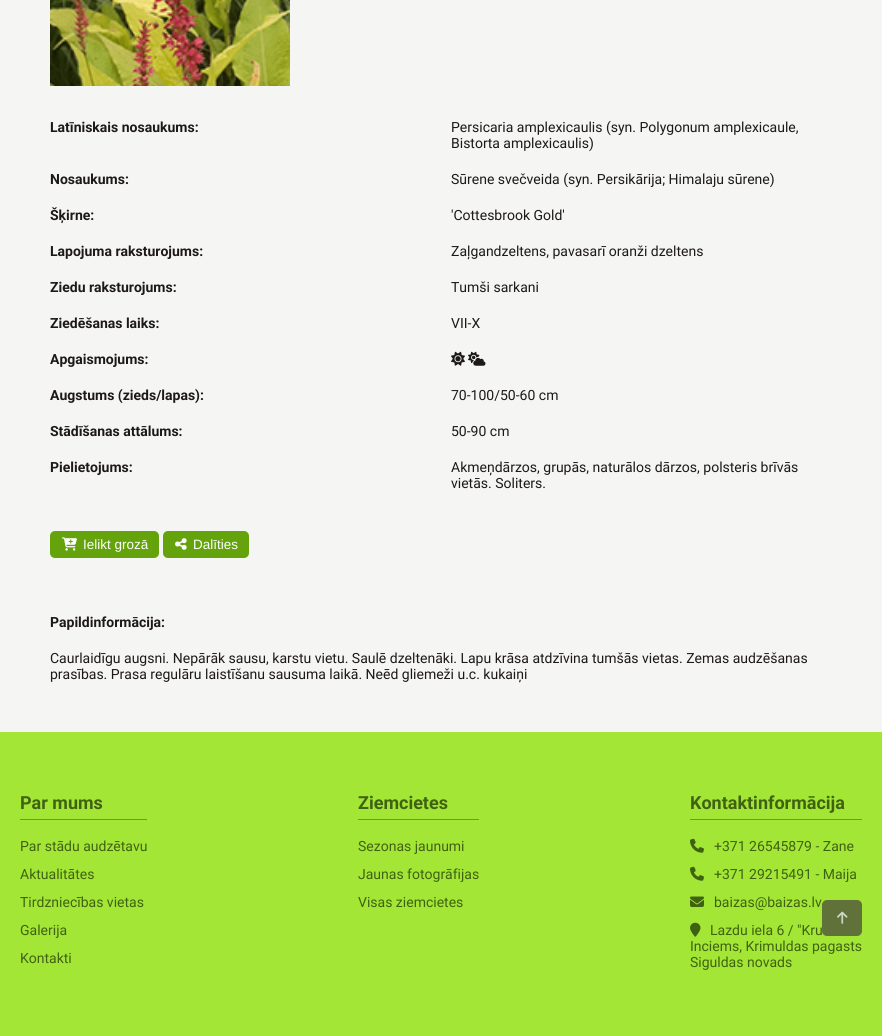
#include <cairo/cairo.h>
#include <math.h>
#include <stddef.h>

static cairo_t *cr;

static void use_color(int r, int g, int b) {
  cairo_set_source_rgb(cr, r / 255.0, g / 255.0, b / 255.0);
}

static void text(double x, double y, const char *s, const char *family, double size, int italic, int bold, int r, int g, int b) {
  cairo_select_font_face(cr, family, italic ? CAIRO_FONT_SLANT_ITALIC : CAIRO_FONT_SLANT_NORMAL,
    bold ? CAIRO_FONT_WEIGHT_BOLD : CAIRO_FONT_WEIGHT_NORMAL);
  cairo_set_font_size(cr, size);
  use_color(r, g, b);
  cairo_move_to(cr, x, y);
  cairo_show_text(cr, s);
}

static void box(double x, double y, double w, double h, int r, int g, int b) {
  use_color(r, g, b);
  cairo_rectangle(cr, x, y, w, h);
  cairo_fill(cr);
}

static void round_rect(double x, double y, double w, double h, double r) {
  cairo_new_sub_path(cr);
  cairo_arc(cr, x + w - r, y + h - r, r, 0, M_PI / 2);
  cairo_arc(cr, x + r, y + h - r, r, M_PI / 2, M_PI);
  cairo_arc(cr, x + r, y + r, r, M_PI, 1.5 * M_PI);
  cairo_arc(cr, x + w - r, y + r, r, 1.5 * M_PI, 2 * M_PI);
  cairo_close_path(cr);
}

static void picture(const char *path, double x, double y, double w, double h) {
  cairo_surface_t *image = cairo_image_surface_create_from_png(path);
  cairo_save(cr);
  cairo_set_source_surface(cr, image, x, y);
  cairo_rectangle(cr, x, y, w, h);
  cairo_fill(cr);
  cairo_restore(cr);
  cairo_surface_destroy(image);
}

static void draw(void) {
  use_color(245, 245, 244);
  cairo_paint(cr);
  picture("img_01.png", 50, 0, 240, 86);
  picture("img_02.png", 451, 351, 14, 15);
  picture("img_03.png", 468, 351, 18, 15);
  use_color(101, 163, 13);
  round_rect(50, 531, 109, 27, 5);
  cairo_fill(cr);
  picture("img_04.png", 62, 537, 15, 14);
  round_rect(163, 531, 86, 27, 5);
  cairo_fill(cr);
  picture("img_05.png", 175, 538, 12, 12);
  box(0, 732, 882, 304, 163, 230, 53);
  cairo_set_source_rgba(cr, 0.267, 0.251, 0.235, 0.7);
  round_rect(822, 900, 40, 36, 5);
  cairo_fill(cr);
  picture("img_06.png", 837, 911, 11, 13);
  box(20, 819, 127, 1, 101, 163, 13);
  box(358, 819, 121, 1, 101, 163, 13);
  box(690, 819, 172, 1, 101, 163, 13);
  picture("img_07.png", 690, 838, 14, 15);
  picture("img_07.png", 690, 866, 14, 15);
  picture("img_08.png", 690, 896, 14, 11);
  picture("img_09.png", 690, 922, 11, 15);
  text(50, 132, "Latīniskais nosaukums:", "Roboto", 14, 0, 1, 28, 25, 23);
  text(451, 132, "Persicaria amplexicaulis (syn. Polygonum amplexicaule,", "Roboto", 14, 0, 0, 28, 25, 23);
  text(451, 148, "Bistorta amplexicaulis)", "Roboto", 14, 0, 0, 28, 25, 23);
  text(50, 184, "Nosaukums:", "Roboto", 14, 0, 1, 28, 25, 23);
  text(451, 184, "Sūrene svečveida (syn. Persikārija; Himalaju sūrene)", "Roboto", 14, 0, 0, 28, 25, 23);
  text(50, 220, "Šķirne:", "Roboto", 14, 0, 1, 28, 25, 23);
  text(451, 220, "'Cottesbrook Gold'", "Roboto", 14, 0, 0, 28, 25, 23);
  text(50, 256, "Lapojuma raksturojums:", "Roboto", 14, 0, 1, 28, 25, 23);
  text(451, 256, "Zaļgandzeltens, pavasarī oranži dzeltens", "Roboto", 14, 0, 0, 28, 25, 23);
  text(50, 292, "Ziedu raksturojums:", "Roboto", 14, 0, 1, 28, 25, 23);
  text(451, 292, "Tumši sarkani", "Roboto", 14, 0, 0, 28, 25, 23);
  text(50, 328, "Ziedēšanas laiks:", "Roboto", 14, 0, 1, 28, 25, 23);
  text(451, 328, "VII-X", "Roboto", 14, 0, 0, 28, 25, 23);
  text(50, 364, "Apgaismojums:", "Roboto", 14, 0, 1, 28, 25, 23);
  text(50, 400, "Augstums (zieds/lapas):", "Roboto", 14, 0, 1, 28, 25, 23);
  text(451, 400, "70-100/50-60 cm", "Roboto", 14, 0, 0, 28, 25, 23);
  text(50, 436, "Stādīšanas attālums:", "Roboto", 14, 0, 1, 28, 25, 23);
  text(451, 436, "50-90 cm", "Roboto", 14, 0, 0, 28, 25, 23);
  text(50, 472, "Pielietojums:", "Roboto", 14, 0, 1, 28, 25, 23);
  text(451, 472, "Akmeņdārzos, grupās, naturālos dārzos, polsteris brīvās", "Roboto", 14, 0, 0, 28, 25, 23);
  text(451, 488, "vietās. Soliters.", "Roboto", 14, 0, 0, 28, 25, 23);
  text(83, 549, "Ielikt grozā", "Liberation Sans", 13.5, 0, 0, 255, 255, 255);
  text(193, 549, "Dalīties", "Liberation Sans", 13.5, 0, 0, 255, 255, 255);
  text(50, 627, "Papildinformācija:", "Roboto", 14, 0, 1, 28, 25, 23);
  text(50, 663, "Caurlaidīgu augsni. Nepārāk sausu, karstu vietu. Saulē dzeltenāki. Lapu krāsa atdzīvina tumšās vietas. Zemas audzēšanas", "Roboto", 14, 0, 0, 28, 25, 23);
  text(50, 679, "prasības. Prasa regulāru laistīšanu sausuma laikā. Neēd gliemeži u.c. kukaiņi", "Roboto", 14, 0, 0, 28, 25, 23);
  text(20, 809, "Par mums", "Roboto", 18, 0, 1, 63, 98, 18);
  text(20, 851, "Par stādu audzētavu", "Roboto", 14, 0, 0, 63, 98, 18);
  text(20, 879, "Aktualitātes", "Roboto", 14, 0, 0, 63, 98, 18);
  text(20, 907, "Tirdzniecības vietas", "Roboto", 14, 0, 0, 63, 98, 18);
  text(20, 935, "Galerija", "Roboto", 14, 0, 0, 63, 98, 18);
  text(20, 963, "Kontakti", "Roboto", 14, 0, 0, 63, 98, 18);
  text(358, 809, "Ziemcietes", "Roboto", 18, 0, 1, 63, 98, 18);
  text(358, 851, "Sezonas jaunumi", "Roboto", 14, 0, 0, 63, 98, 18);
  text(358, 879, "Jaunas fotogrāfijas", "Roboto", 14, 0, 0, 63, 98, 18);
  text(358, 907, "Visas ziemcietes", "Roboto", 14, 0, 0, 63, 98, 18);
  text(690, 809, "Kontaktinformācija", "Roboto", 18, 0, 1, 63, 98, 18);
  text(714, 851, "+371 26545879 - Zane", "Roboto", 14, 0, 0, 63, 98, 18);
  text(714, 879, "+371 29215491 - Maija", "Roboto", 14, 0, 0, 63, 98, 18);
  text(714, 907, "baizas@baizas.lv", "Roboto", 14, 0, 0, 63, 98, 18);
  text(710, 935, "Lazdu iela 6 / \"Kru", "Roboto", 14, 0, 0, 63, 98, 18);
  text(690, 951, "Inciems, Krimuldas pagasts", "Roboto", 14, 0, 0, 63, 98, 18);
  text(690, 967, "Siguldas novads", "Roboto", 14, 0, 0, 63, 98, 18);
}

int main(void) {
  cairo_surface_t *surface = cairo_image_surface_create(CAIRO_FORMAT_RGB24, 882, 1036);
  cr = cairo_create(surface);
  cairo_font_options_t *options = cairo_font_options_create();
  cairo_font_options_set_hint_metrics(options, CAIRO_HINT_METRICS_OFF);
  cairo_font_options_set_hint_style(options, CAIRO_HINT_STYLE_NONE);
  cairo_set_font_options(cr, options);
  cairo_set_miter_limit(cr, 4);
  draw();
  cairo_surface_write_to_png(surface, "out.png");
  cairo_font_options_destroy(options);
  cairo_destroy(cr);
  cairo_surface_destroy(surface);
  return 0;
}
